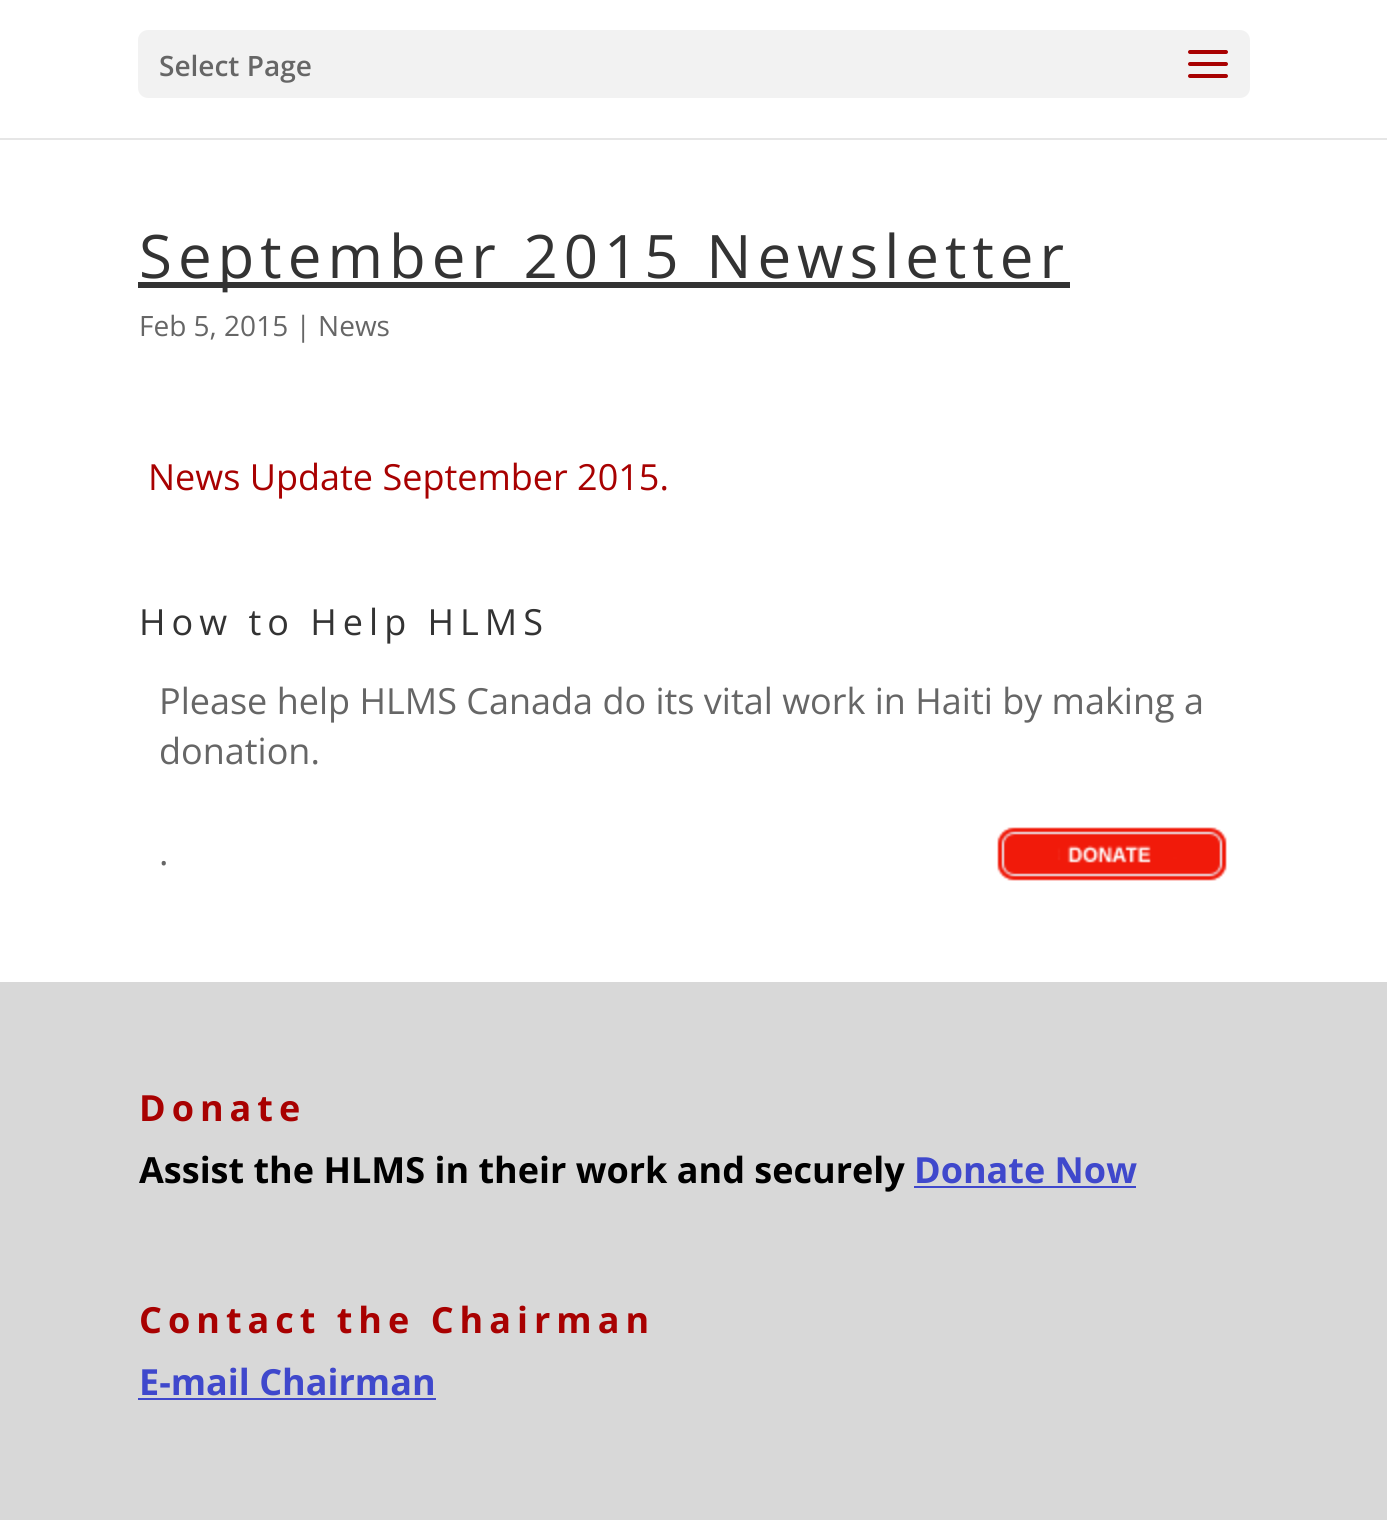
#include <cairo/cairo.h>
#include <math.h>
#include <stddef.h>

static cairo_t *cr;

static void use_color(int r, int g, int b) {
  cairo_set_source_rgb(cr, r / 255.0, g / 255.0, b / 255.0);
}

static void text(double x, double y, const char *s, const char *family, double size, int italic, int bold, int r, int g, int b) {
  cairo_select_font_face(cr, family, italic ? CAIRO_FONT_SLANT_ITALIC : CAIRO_FONT_SLANT_NORMAL,
    bold ? CAIRO_FONT_WEIGHT_BOLD : CAIRO_FONT_WEIGHT_NORMAL);
  cairo_set_font_size(cr, size);
  use_color(r, g, b);
  cairo_move_to(cr, x, y);
  cairo_show_text(cr, s);
}

static void spaced_text(double x, double y, const char *s, double letter, double word) {
  cairo_move_to(cr, x, y);
  while (*s) {
    char ch[5] = {0};
    int n = 0;
    do ch[n++] = *s++; while ((*s & 0xC0) == 0x80);
    cairo_show_text(cr, ch);
    cairo_rel_move_to(cr, letter + word * (*ch == ' '), 0);
  }
}

static void box(double x, double y, double w, double h, int r, int g, int b) {
  use_color(r, g, b);
  cairo_rectangle(cr, x, y, w, h);
  cairo_fill(cr);
}

static void round_rect(double x, double y, double w, double h, double r) {
  cairo_new_sub_path(cr);
  cairo_arc(cr, x + w - r, y + h - r, r, 0, M_PI / 2);
  cairo_arc(cr, x + r, y + h - r, r, M_PI / 2, M_PI);
  cairo_arc(cr, x + r, y + r, r, M_PI, 1.5 * M_PI);
  cairo_arc(cr, x + w - r, y + r, r, 1.5 * M_PI, 2 * M_PI);
  cairo_close_path(cr);
}

static void picture(const char *path, double x, double y, double w, double h) {
  cairo_surface_t *image = cairo_image_surface_create_from_png(path);
  cairo_save(cr);
  cairo_set_source_surface(cr, image, x, y);
  cairo_rectangle(cr, x, y, w, h);
  cairo_fill(cr);
  cairo_restore(cr);
  cairo_surface_destroy(image);
}

static void draw(void) {
  use_color(255, 255, 255);
  cairo_paint(cr);
  box(0, 138, 1387, 2, 230, 230, 230);
  use_color(242, 242, 242);
  round_rect(138, 30, 1112, 68, 10);
  cairo_fill(cr);
  picture("img_01.png", 1188, 50, 40, 28);
  box(138, 282, 932, 6, 51, 51, 51);
  picture("img_02.png", 997, 827, 230, 54);
  box(0, 982, 1387, 538, 216, 216, 216);
  box(914, 1186, 222, 2, 63, 72, 204);
  box(138, 1398, 298, 2, 63, 72, 204);
  text(159, 76, "Select Page", "Open Sans SemiBold", 28, 0, 0, 102, 102, 102);
  cairo_select_font_face(cr, "Open Sans", CAIRO_FONT_SLANT_NORMAL, CAIRO_FONT_WEIGHT_NORMAL);
  cairo_set_font_size(cr, 60);
  use_color(51, 51, 51);
  spaced_text(139, 278, "September 2015 Newsletter", 6, 0);
  text(139, 336, "Feb 5, 2015 | News", "Open Sans", 28, 0, 0, 102, 102, 102);
  text(148, 490, "News Update September 2015.", "Open Sans", 36, 0, 0, 168, 1, 1);
  use_color(51, 51, 51);
  spaced_text(139, 635, "How to Help HLMS", 6, 0);
  text(159, 714, "Please help HLMS Canada do its vital work in Haiti by making a", "Open Sans", 36, 0, 0, 102, 102, 102);
  text(159, 764, "donation.", "Open Sans", 36, 0, 0, 102, 102, 102);
  text(159, 865, ".", "Open Sans", 36, 0, 0, 102, 102, 102);
  cairo_select_font_face(cr, "Open Sans", CAIRO_FONT_SLANT_NORMAL, CAIRO_FONT_WEIGHT_BOLD);
  use_color(168, 1, 1);
  spaced_text(139, 1121, "Donate", 6, 0);
  text(139, 1183, "Assist the HLMS in their work and securely", "Open Sans", 36, 0, 1, 0, 0, 0);
  text(914, 1183, "Donate Now", "Open Sans", 36, 0, 1, 63, 72, 204);
  use_color(168, 1, 1);
  spaced_text(139, 1333, "Contact the Chairman", 6, 0);
  text(139, 1395, "E-mail Chairman", "Open Sans", 36, 0, 1, 63, 72, 204);
}

int main(void) {
  cairo_surface_t *surface = cairo_image_surface_create(CAIRO_FORMAT_RGB24, 1387, 1520);
  cr = cairo_create(surface);
  cairo_font_options_t *options = cairo_font_options_create();
  cairo_font_options_set_hint_metrics(options, CAIRO_HINT_METRICS_OFF);
  cairo_font_options_set_hint_style(options, CAIRO_HINT_STYLE_NONE);
  cairo_set_font_options(cr, options);
  cairo_set_miter_limit(cr, 4);
  draw();
  cairo_surface_write_to_png(surface, "out.png");
  cairo_font_options_destroy(options);
  cairo_destroy(cr);
  cairo_surface_destroy(surface);
  return 0;
}
